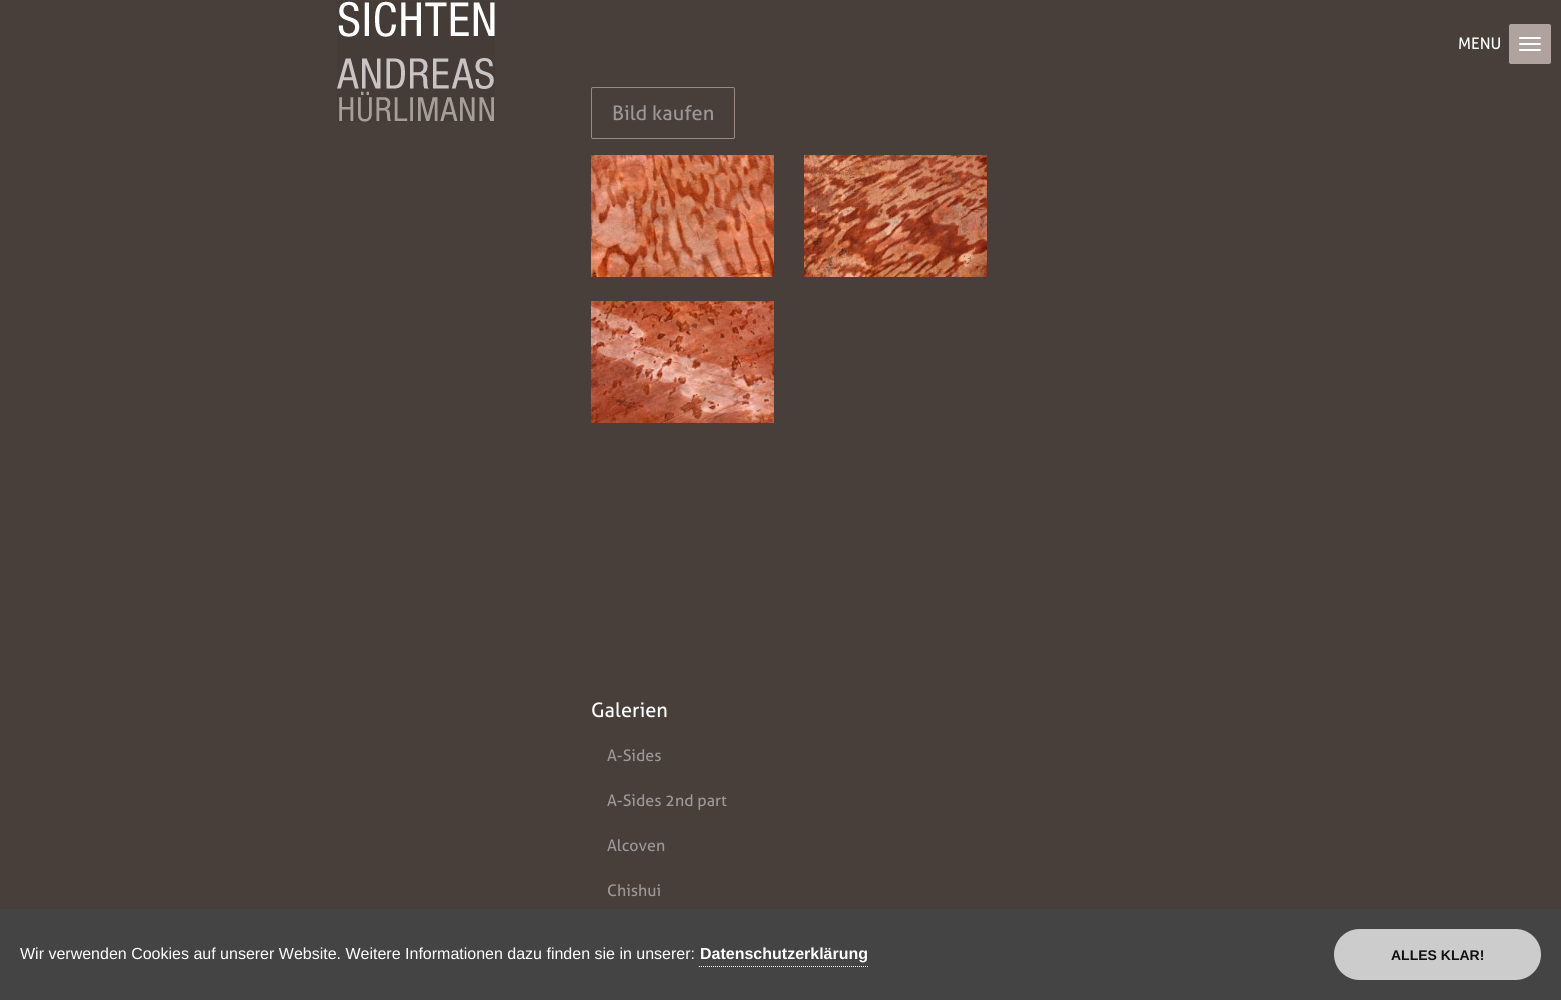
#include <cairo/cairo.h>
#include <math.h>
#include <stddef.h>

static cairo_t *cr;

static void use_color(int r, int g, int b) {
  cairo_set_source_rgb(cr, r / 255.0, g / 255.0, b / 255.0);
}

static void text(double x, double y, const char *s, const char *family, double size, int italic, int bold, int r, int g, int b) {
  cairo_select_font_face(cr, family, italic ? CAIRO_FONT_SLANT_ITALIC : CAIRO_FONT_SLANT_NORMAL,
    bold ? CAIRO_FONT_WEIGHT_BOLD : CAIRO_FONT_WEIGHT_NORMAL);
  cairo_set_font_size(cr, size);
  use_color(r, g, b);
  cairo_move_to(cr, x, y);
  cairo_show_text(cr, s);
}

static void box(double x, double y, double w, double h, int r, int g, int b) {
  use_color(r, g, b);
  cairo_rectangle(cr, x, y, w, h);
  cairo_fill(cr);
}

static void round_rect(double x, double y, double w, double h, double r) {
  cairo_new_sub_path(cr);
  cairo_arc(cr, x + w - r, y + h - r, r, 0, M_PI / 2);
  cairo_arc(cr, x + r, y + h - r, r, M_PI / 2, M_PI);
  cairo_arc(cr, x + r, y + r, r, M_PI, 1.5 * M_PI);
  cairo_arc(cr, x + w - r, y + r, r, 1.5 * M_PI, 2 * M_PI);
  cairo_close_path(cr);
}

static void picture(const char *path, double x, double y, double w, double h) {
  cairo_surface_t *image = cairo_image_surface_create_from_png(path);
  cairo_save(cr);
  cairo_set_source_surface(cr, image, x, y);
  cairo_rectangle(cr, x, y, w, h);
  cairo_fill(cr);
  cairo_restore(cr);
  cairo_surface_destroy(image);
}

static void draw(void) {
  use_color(72, 62, 58);
  cairo_paint(cr);
  use_color(176, 163, 158);
  round_rect(1509, 24, 42, 40, 2);
  cairo_fill(cr);
  use_color(255, 255, 255);
  round_rect(1519, 37, 22, 2, 1);
  cairo_fill(cr);
  round_rect(1519, 43, 22, 2, 1);
  cairo_fill(cr);
  round_rect(1519, 49, 22, 2, 1);
  cairo_fill(cr);
  picture("img_01.png", 337, 1, 158, 121);
  round_rect(591.5, 87.5, 143, 51, 1.5);
  use_color(154, 136, 129);
  cairo_set_line_width(cr, 1);
  cairo_stroke(cr);
  picture("img_02.png", 591, 155, 183, 122);
  picture("img_03.png", 804, 155, 183, 122);
  picture("img_04.png", 591, 301, 183, 122);
  box(0, 909, 1561, 91, 68, 68, 68);
  cairo_new_path(cr);
  cairo_move_to(cr, 699, 966.5);
  cairo_line_to(cr, 869, 966.5);
  use_color(255, 255, 255);
  cairo_set_dash(cr, (double[]){1, 1}, 2, 0);
  cairo_stroke(cr);
  use_color(204, 204, 204);
  round_rect(1334, 929, 207, 51, 25.5);
  cairo_fill(cr);
  text(1458, 49, "MENU", "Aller", 16, 0, 0, 255, 255, 255);
  text(612, 120, "Bild kaufen", "Aller", 20, 0, 0, 153, 153, 153);
  text(591, 717, "Galerien", "Aller", 20, 0, 0, 255, 255, 255);
  text(607, 761, "A-Sides", "Aller", 16, 0, 0, 153, 153, 153);
  text(607, 806, "A-Sides 2nd part", "Aller", 16, 0, 0, 153, 153, 153);
  text(607, 851, "Alcoven", "Aller", 16, 0, 0, 153, 153, 153);
  text(607, 896, "Chishui", "Aller", 16, 0, 0, 153, 153, 153);
  text(20, 959, "Wir verwenden Cookies auf unserer Website. Weitere Informationen dazu finden sie in unserer:", "Liberation Sans", 16, 0, 0, 255, 255, 255);
  text(700, 959, "Datenschutzerklärung", "Liberation Sans", 16, 0, 1, 255, 255, 255);
  text(1391, 960, "ALLES KLAR!", "Liberation Sans", 14, 0, 1, 17, 17, 17);
}

int main(void) {
  cairo_surface_t *surface = cairo_image_surface_create(CAIRO_FORMAT_RGB24, 1561, 1000);
  cr = cairo_create(surface);
  cairo_font_options_t *options = cairo_font_options_create();
  cairo_font_options_set_hint_metrics(options, CAIRO_HINT_METRICS_OFF);
  cairo_font_options_set_hint_style(options, CAIRO_HINT_STYLE_NONE);
  cairo_set_font_options(cr, options);
  cairo_set_miter_limit(cr, 4);
  draw();
  cairo_surface_write_to_png(surface, "out.png");
  cairo_font_options_destroy(options);
  cairo_destroy(cr);
  cairo_surface_destroy(surface);
  return 0;
}
